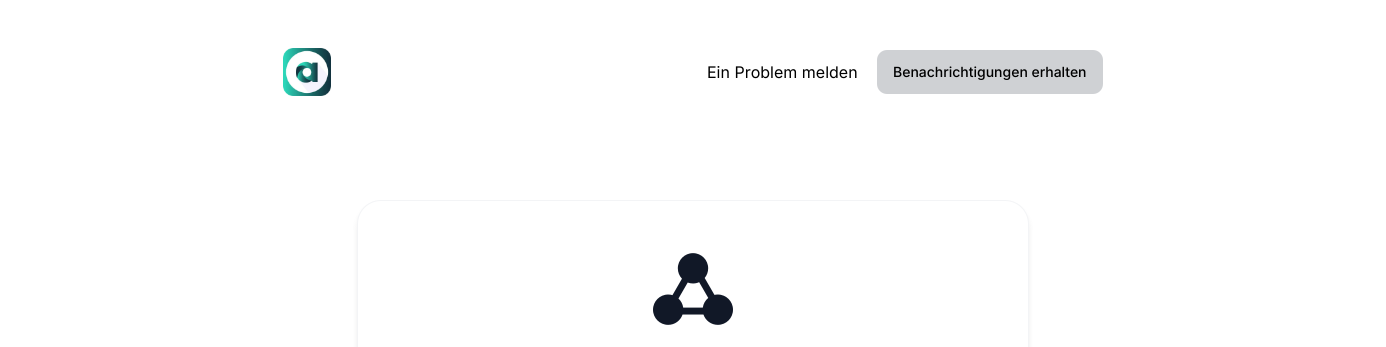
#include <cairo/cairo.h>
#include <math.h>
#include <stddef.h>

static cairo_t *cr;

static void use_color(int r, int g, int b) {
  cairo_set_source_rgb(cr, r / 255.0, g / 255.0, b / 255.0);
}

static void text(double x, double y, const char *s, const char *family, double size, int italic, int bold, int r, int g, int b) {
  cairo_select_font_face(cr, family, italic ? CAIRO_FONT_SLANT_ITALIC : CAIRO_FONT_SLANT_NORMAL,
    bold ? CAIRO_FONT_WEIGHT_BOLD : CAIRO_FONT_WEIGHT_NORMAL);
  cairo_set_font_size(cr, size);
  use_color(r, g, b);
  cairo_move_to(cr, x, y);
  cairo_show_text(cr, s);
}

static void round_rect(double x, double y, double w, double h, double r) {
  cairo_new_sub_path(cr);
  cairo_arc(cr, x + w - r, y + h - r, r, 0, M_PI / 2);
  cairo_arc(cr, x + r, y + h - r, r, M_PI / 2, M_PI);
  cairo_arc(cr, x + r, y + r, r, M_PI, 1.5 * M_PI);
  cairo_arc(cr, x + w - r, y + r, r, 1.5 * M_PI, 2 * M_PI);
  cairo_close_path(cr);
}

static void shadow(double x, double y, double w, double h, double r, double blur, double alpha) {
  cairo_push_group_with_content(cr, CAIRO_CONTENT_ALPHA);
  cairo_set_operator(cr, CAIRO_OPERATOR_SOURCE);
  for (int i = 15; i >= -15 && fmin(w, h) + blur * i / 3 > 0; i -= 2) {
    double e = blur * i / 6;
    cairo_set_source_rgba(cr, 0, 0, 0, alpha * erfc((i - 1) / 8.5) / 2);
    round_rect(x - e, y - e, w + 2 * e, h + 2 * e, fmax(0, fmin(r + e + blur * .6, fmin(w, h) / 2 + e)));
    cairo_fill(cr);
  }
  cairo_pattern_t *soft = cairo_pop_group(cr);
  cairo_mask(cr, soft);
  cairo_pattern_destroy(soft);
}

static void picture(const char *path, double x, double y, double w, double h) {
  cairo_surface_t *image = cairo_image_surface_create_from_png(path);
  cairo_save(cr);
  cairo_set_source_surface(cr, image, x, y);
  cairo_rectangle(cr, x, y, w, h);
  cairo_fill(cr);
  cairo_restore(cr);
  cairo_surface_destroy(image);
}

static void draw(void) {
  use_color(255, 255, 255);
  cairo_paint(cr);
  picture("img_01.png", 283, 48, 48, 48);
  use_color(207, 209, 212);
  round_rect(877, 50, 226, 44, 10);
  cairo_fill(cr);
  use_color(0, 0, 0);
  shadow(358, 205, 670, 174, 23, 3, 0.1);
  use_color(255, 255, 255);
  round_rect(357.5, 200.5, 671, 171, 23.5);
  cairo_fill_preserve(cr);
  use_color(243, 244, 246);
  cairo_set_line_width(cr, 1);
  cairo_stroke(cr);
  picture("img_02.png", 653, 253, 80, 72);
  text(707, 78, "Ein Problem melden", "Inter", 16, 0, 0, 0, 0, 0);
  text(893, 77, "Benachrichtigungen erhalten", "Inter Medium", 14, 0, 0, 0, 0, 0);
}

int main(void) {
  cairo_surface_t *surface = cairo_image_surface_create(CAIRO_FORMAT_RGB24, 1386, 347);
  cr = cairo_create(surface);
  cairo_font_options_t *options = cairo_font_options_create();
  cairo_font_options_set_hint_metrics(options, CAIRO_HINT_METRICS_OFF);
  cairo_font_options_set_hint_style(options, CAIRO_HINT_STYLE_NONE);
  cairo_set_font_options(cr, options);
  cairo_set_miter_limit(cr, 4);
  draw();
  cairo_surface_write_to_png(surface, "out.png");
  cairo_font_options_destroy(options);
  cairo_destroy(cr);
  cairo_surface_destroy(surface);
  return 0;
}
